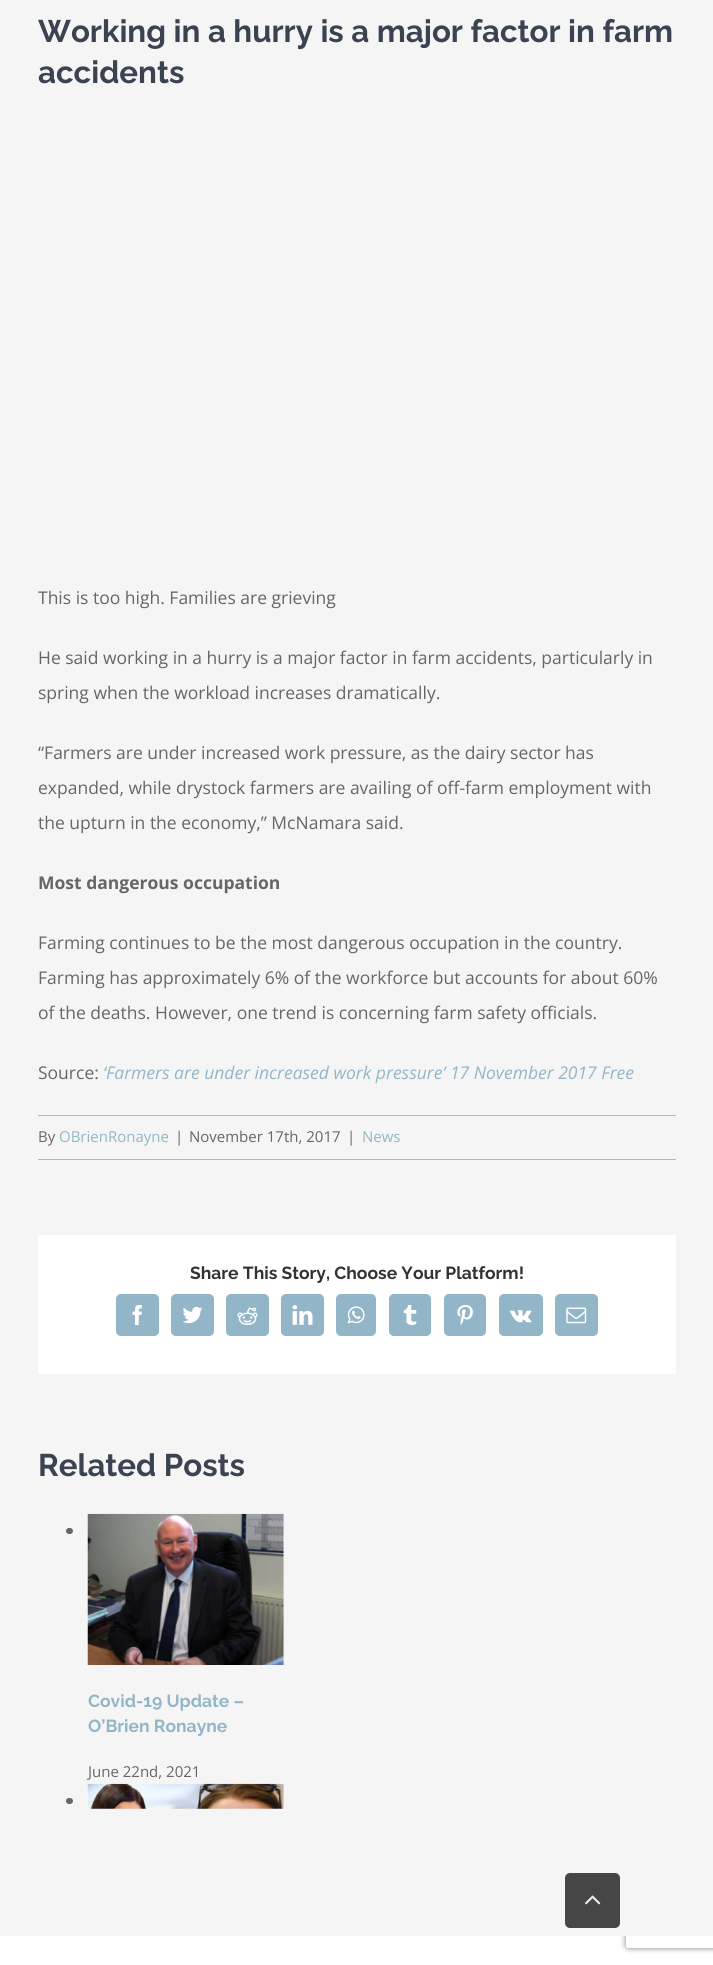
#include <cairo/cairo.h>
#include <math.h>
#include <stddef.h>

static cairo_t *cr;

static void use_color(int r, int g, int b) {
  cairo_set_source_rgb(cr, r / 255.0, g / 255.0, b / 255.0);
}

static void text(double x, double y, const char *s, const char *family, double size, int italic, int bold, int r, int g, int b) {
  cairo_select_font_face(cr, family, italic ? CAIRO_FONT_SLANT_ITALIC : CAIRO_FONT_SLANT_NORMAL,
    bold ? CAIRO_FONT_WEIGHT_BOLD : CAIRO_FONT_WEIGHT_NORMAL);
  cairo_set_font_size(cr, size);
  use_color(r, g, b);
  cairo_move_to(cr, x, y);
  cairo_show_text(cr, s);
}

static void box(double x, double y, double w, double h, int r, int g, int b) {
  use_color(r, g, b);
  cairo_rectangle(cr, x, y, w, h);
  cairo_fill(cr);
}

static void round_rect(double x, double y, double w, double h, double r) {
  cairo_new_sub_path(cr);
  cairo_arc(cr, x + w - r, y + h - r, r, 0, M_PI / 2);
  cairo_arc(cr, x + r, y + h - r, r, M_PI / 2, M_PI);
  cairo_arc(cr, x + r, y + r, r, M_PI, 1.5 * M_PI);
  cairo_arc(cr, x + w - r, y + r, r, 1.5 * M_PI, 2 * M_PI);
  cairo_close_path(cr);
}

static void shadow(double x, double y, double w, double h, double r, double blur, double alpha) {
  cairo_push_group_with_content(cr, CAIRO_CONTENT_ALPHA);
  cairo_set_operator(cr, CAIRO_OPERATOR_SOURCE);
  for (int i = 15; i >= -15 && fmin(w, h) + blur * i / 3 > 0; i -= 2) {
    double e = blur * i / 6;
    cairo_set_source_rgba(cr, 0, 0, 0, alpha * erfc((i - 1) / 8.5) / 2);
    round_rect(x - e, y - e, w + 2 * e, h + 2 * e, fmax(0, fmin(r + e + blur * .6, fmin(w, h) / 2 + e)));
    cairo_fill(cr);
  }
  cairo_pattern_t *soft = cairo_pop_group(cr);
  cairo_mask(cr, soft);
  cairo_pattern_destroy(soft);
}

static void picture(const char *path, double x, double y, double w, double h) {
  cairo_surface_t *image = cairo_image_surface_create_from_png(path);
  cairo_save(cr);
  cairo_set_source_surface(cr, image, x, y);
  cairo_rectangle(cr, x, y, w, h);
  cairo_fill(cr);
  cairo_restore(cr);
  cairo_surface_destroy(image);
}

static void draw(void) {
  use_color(255, 255, 255);
  cairo_paint(cr);
  cairo_save(cr);
  cairo_set_fill_rule(cr, CAIRO_FILL_RULE_EVEN_ODD);
  cairo_new_path(cr);
  cairo_move_to(cr, 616, 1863);
  cairo_line_to(cr, 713, 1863);
  cairo_line_to(cr, 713, 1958);
  cairo_line_to(cr, 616, 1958);
  cairo_close_path(cr);
  cairo_move_to(cr, 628.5, 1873);
  cairo_line_to(cr, 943.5, 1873);
  cairo_curve_to(cr, 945, 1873, 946, 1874, 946, 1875.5);
  cairo_line_to(cr, 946, 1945.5);
  cairo_curve_to(cr, 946, 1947, 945, 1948, 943.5, 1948);
  cairo_line_to(cr, 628.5, 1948);
  cairo_curve_to(cr, 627, 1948, 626, 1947, 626, 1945.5);
  cairo_line_to(cr, 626, 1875.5);
  cairo_curve_to(cr, 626, 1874, 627, 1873, 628.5, 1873);
  cairo_close_path(cr);
  cairo_clip(cr);
  use_color(128, 128, 128);
  shadow(626, 1873, 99, 75, 2.5, 3, 1);
  cairo_restore(cr);
  box(0, 0, 713, 1936, 245, 245, 245);
  box(38, 1115, 638, 1, 154, 192, 205);
  box(38, 1159, 638, 1, 154, 192, 205);
  box(38, 1235, 638, 139, 255, 255, 255);
  use_color(146, 182, 199);
  round_rect(116.5, 1294.5, 42, 41, 4.5);
  cairo_fill_preserve(cr);
  cairo_set_line_width(cr, 1);
  cairo_stroke(cr);
  picture("img_01.png", 132, 1305, 10, 20);
  round_rect(171.5, 1294.5, 42, 41, 4.5);
  cairo_fill_preserve(cr);
  cairo_stroke(cr);
  picture("img_02.png", 182, 1306, 21, 18);
  round_rect(226.5, 1294.5, 42, 41, 4.5);
  cairo_fill_preserve(cr);
  cairo_stroke(cr);
  picture("img_03.png", 237, 1307, 21, 18);
  round_rect(281.5, 1294.5, 42, 41, 4.5);
  cairo_fill_preserve(cr);
  cairo_stroke(cr);
  picture("img_04.png", 292, 1305, 21, 20);
  round_rect(336.5, 1294.5, 39, 41, 4.5);
  cairo_fill_preserve(cr);
  cairo_stroke(cr);
  picture("img_05.png", 347, 1306, 18, 18);
  round_rect(389.5, 1294.5, 41, 41, 4.5);
  cairo_fill_preserve(cr);
  cairo_stroke(cr);
  picture("img_06.png", 403, 1305, 14, 20);
  round_rect(444.5, 1294.5, 41, 41, 4.5);
  cairo_fill_preserve(cr);
  cairo_stroke(cr);
  picture("img_07.png", 457, 1305, 16, 20);
  round_rect(499.5, 1294.5, 43, 41, 4.5);
  cairo_fill_preserve(cr);
  cairo_stroke(cr);
  picture("img_08.png", 510, 1310, 22, 13);
  round_rect(555.5, 1294.5, 42, 41, 4.5);
  cairo_fill_preserve(cr);
  cairo_stroke(cr);
  picture("img_09.png", 566, 1307, 21, 17);
  use_color(102, 102, 102);
  round_rect(66, 1528, 7, 6, 3);
  cairo_fill(cr);
  picture("img_10.png", 87, 1513, 197, 152);
  round_rect(66, 1798, 7, 6, 3);
  cairo_fill(cr);
  picture("img_11.png", 87, 1783, 197, 26);
  use_color(70, 70, 70);
  round_rect(565, 1873, 55, 55, 5);
  cairo_fill(cr);
  picture("img_12.png", 585, 1895, 16, 10);
  text(38, 42, "Working in a hurry is a major factor in farm", "Raleway Thin", 31.25, 0, 0, 59, 66, 81);
  text(38, 83, "accidents", "Raleway Thin", 31.25, 0, 0, 59, 66, 81);
  text(38, 604, "This is too high. Families are grieving", "Open Sans", 17.5, 0, 0, 102, 102, 102);
  text(38, 664, "He said working in a hurry is a major factor in farm accidents, particularly in", "Open Sans", 17.5, 0, 0, 102, 102, 102);
  text(38, 699, "spring when the workload increases dramatically.", "Open Sans", 17.5, 0, 0, 102, 102, 102);
  text(38, 759, "“Farmers are under increased work pressure, as the dairy sector has", "Open Sans", 17.5, 0, 0, 102, 102, 102);
  text(38, 794, "expanded, while drystock farmers are availing of off-farm employment with", "Open Sans", 17.5, 0, 0, 102, 102, 102);
  text(38, 829, "the upturn in the economy,” McNamara said.", "Open Sans", 17.5, 0, 0, 102, 102, 102);
  text(38, 889, "Most dangerous occupation", "Open Sans", 17.5, 0, 1, 102, 102, 102);
  text(38, 949, "Farming continues to be the most dangerous occupation in the country.", "Open Sans", 17.5, 0, 0, 102, 102, 102);
  text(38, 984, "Farming has approximately 6% of the workforce but accounts for about 60%", "Open Sans", 17.5, 0, 0, 102, 102, 102);
  text(38, 1019, "of the deaths. However, one trend is concerning farm safety officials.", "Open Sans", 17.5, 0, 0, 102, 102, 102);
  text(38, 1079, "Source:", "Open Sans", 17.5, 0, 0, 102, 102, 102);
  text(103, 1079, "‘Farmers are under increased work pressure’ 17 November 2017 Free", "Open Sans", 17.5, 1, 0, 146, 182, 199);
  text(38, 1142, "By", "Open Sans", 15, 0, 0, 102, 102, 102);
  text(59, 1142, "OBrienRonayne", "Open Sans", 15, 0, 0, 146, 182, 199);
  text(175, 1142, "|", "Open Sans", 15, 0, 0, 102, 102, 102);
  text(189, 1142, "November 17th, 2017", "Open Sans", 15, 0, 0, 102, 102, 102);
  text(347, 1142, "|", "Open Sans", 15, 0, 0, 102, 102, 102);
  text(362, 1142, "News", "Open Sans", 15, 0, 0, 146, 182, 199);
  text(190, 1279, "Share This Story, Choose Your Platform!", "Raleway Thin", 17.5, 0, 0, 51, 51, 51);
  text(38, 1476, "Related Posts", "Raleway Thin", 31.25, 0, 0, 59, 66, 81);
  text(88, 1707, "Covid-19 Update –", "Raleway Thin", 17.5, 0, 0, 146, 182, 199);
  text(88, 1732, "O’Brien Ronayne", "Raleway Thin", 17.5, 0, 0, 146, 182, 199);
  text(88, 1777, "June 22nd, 2021", "Open Sans", 15, 0, 0, 102, 102, 102);
}

int main(void) {
  cairo_surface_t *surface = cairo_image_surface_create(CAIRO_FORMAT_RGB24, 713, 1965);
  cr = cairo_create(surface);
  cairo_font_options_t *options = cairo_font_options_create();
  cairo_font_options_set_hint_metrics(options, CAIRO_HINT_METRICS_OFF);
  cairo_font_options_set_hint_style(options, CAIRO_HINT_STYLE_NONE);
  cairo_set_font_options(cr, options);
  cairo_set_miter_limit(cr, 4);
  draw();
  cairo_surface_write_to_png(surface, "out.png");
  cairo_font_options_destroy(options);
  cairo_destroy(cr);
  cairo_surface_destroy(surface);
  return 0;
}
